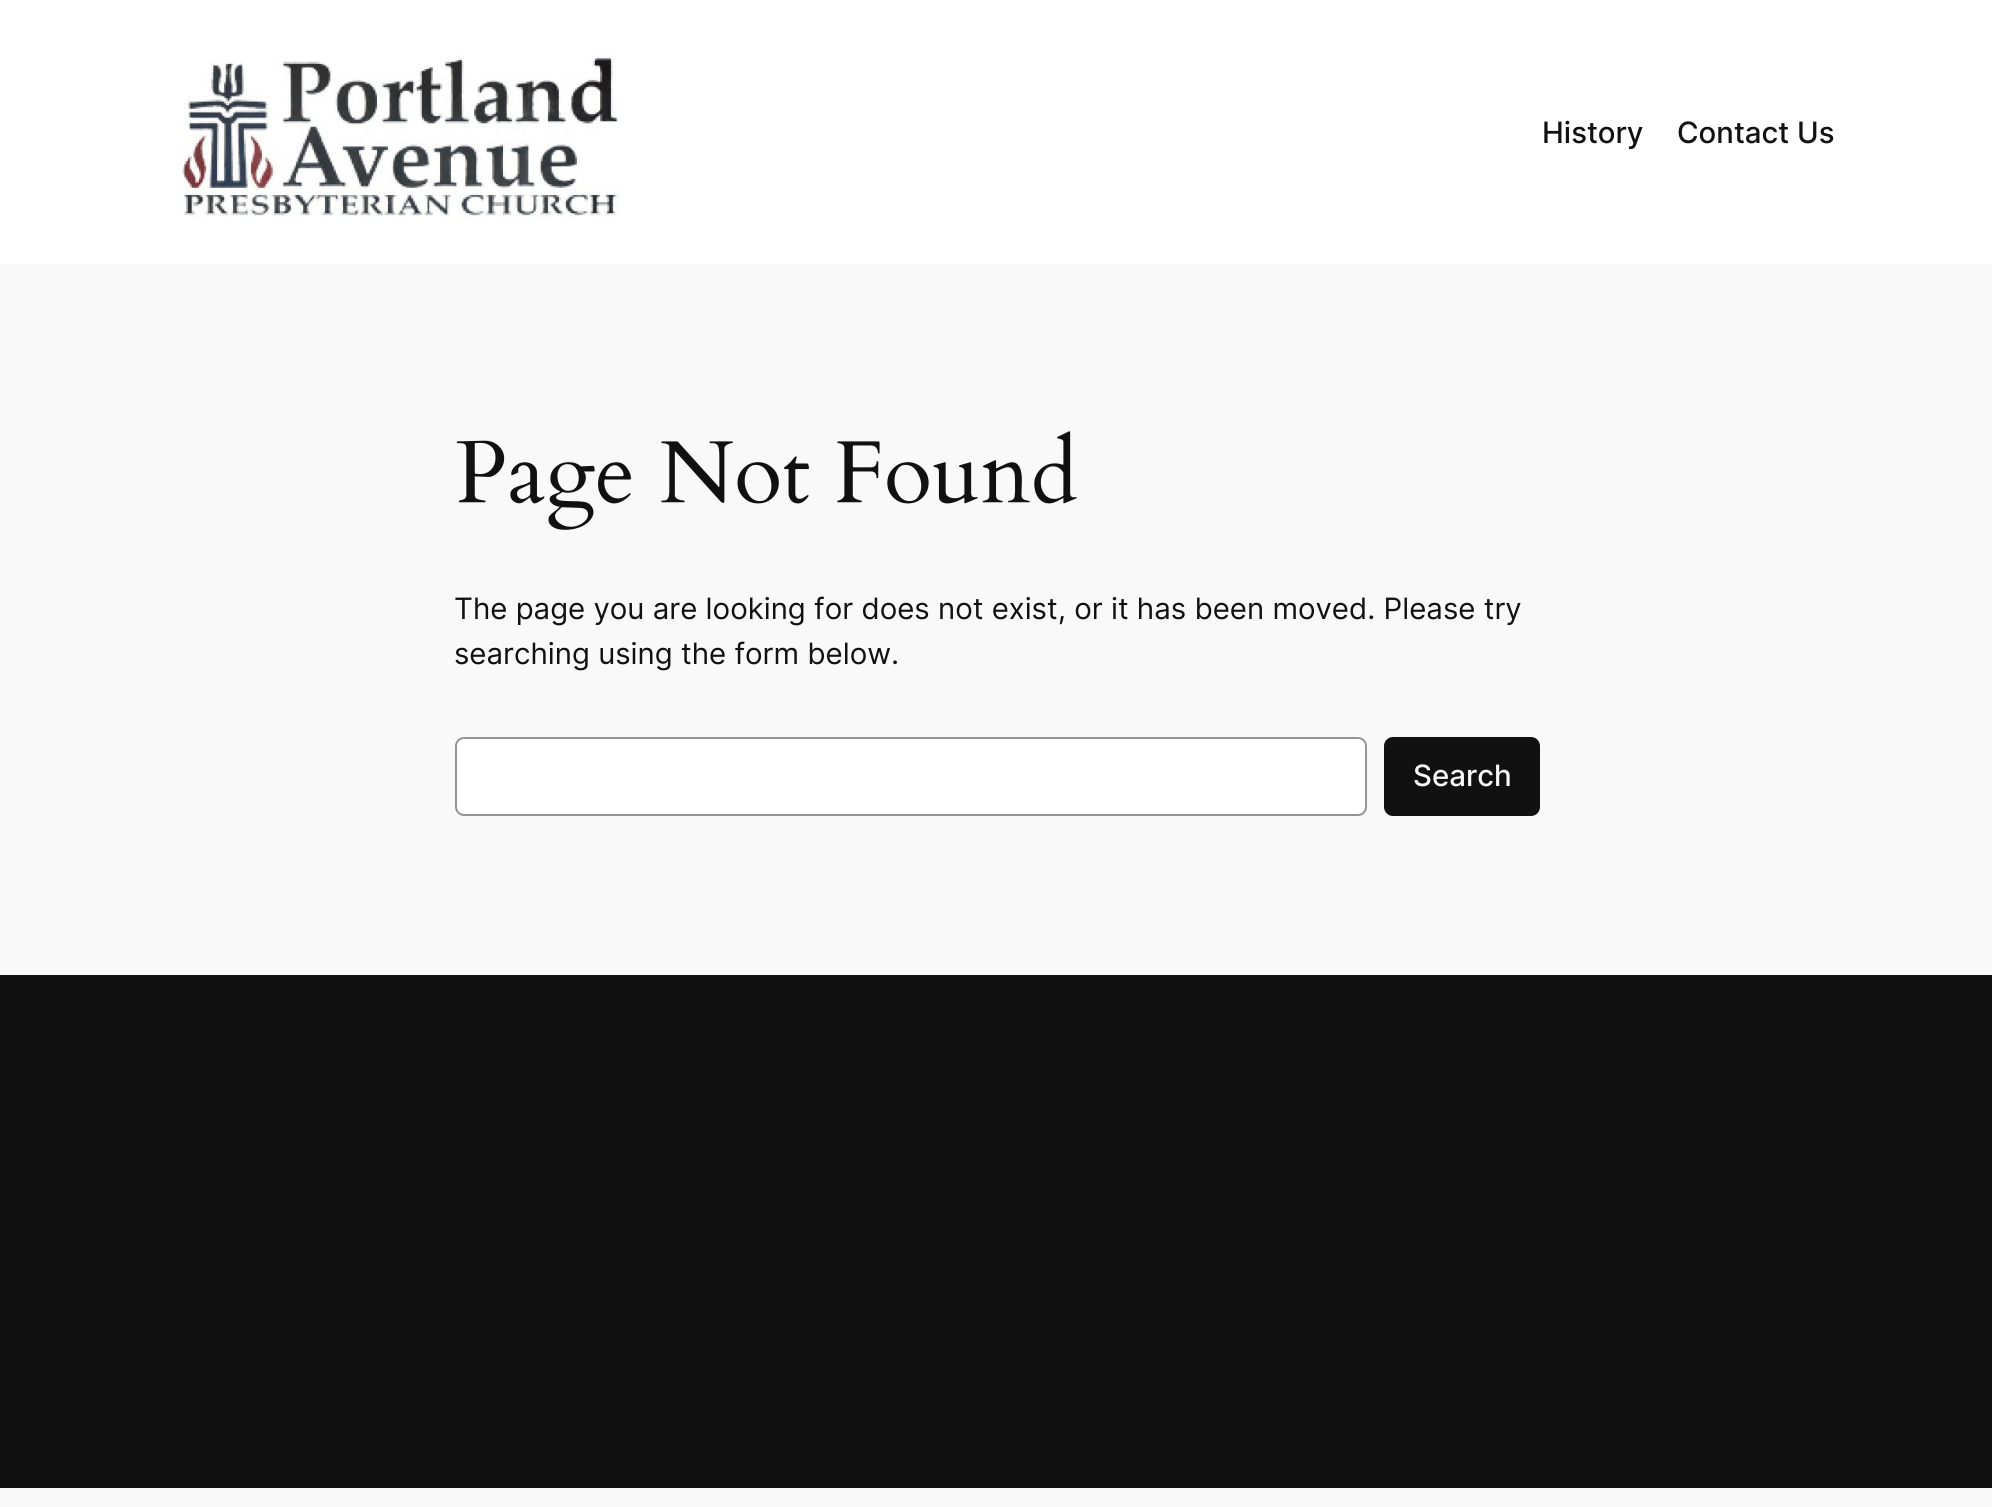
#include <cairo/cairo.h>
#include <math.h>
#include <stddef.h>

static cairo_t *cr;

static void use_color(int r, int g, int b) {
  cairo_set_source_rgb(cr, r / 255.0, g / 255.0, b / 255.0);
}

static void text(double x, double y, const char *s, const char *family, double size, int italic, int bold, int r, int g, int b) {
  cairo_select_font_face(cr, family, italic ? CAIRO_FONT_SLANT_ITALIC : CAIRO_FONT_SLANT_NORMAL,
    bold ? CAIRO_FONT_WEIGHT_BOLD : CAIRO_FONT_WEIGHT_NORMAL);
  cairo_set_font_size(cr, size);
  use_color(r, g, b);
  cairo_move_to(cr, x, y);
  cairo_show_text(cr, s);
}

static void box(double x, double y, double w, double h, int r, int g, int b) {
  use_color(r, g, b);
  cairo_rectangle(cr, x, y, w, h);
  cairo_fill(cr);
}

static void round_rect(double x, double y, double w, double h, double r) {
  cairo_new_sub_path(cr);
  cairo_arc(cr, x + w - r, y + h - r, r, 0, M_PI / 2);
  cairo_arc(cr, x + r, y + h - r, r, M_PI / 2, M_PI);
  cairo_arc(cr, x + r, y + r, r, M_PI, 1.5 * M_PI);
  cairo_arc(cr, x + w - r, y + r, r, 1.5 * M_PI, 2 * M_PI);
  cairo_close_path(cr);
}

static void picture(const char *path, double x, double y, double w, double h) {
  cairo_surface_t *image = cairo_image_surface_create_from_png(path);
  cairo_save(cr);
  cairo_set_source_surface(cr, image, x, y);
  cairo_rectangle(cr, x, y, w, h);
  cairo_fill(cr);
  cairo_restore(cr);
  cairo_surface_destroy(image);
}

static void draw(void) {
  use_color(249, 249, 249);
  cairo_paint(cr);
  box(0, 0, 1992, 264, 255, 255, 255);
  picture("img_01.png", 182, 54, 438, 167);
  picture("img_02.png", 456, 431, 621, 99);
  round_rect(456, 738, 910, 77, 8);
  cairo_fill_preserve(cr);
  use_color(148, 148, 148);
  cairo_stroke(cr);
  use_color(17, 17, 17);
  round_rect(1384, 737, 156, 79, 9);
  cairo_fill(cr);
  box(0, 975, 1992, 513, 17, 17, 17);
  text(1542, 143, "History", "Inter Medium", 29.4, 0, 0, 17, 17, 17);
  text(1677, 143, "Contact Us", "Inter Medium", 29.4, 0, 0, 17, 17, 17);
  text(454, 619, "The page you are looking for does not exist, or it has been moved. Please try", "Inter", 29.4, 0, 0, 17, 17, 17);
  text(454, 664, "searching using the form below.", "Inter", 29.4, 0, 0, 17, 17, 17);
  text(1413, 786, "Search", "Inter Medium", 29.4, 0, 0, 249, 249, 249);
}

int main(void) {
  cairo_surface_t *surface = cairo_image_surface_create(CAIRO_FORMAT_RGB24, 1992, 1507);
  cr = cairo_create(surface);
  cairo_font_options_t *options = cairo_font_options_create();
  cairo_font_options_set_hint_metrics(options, CAIRO_HINT_METRICS_OFF);
  cairo_font_options_set_hint_style(options, CAIRO_HINT_STYLE_NONE);
  cairo_set_font_options(cr, options);
  cairo_set_miter_limit(cr, 4);
  draw();
  cairo_surface_write_to_png(surface, "out.png");
  cairo_font_options_destroy(options);
  cairo_destroy(cr);
  cairo_surface_destroy(surface);
  return 0;
}
